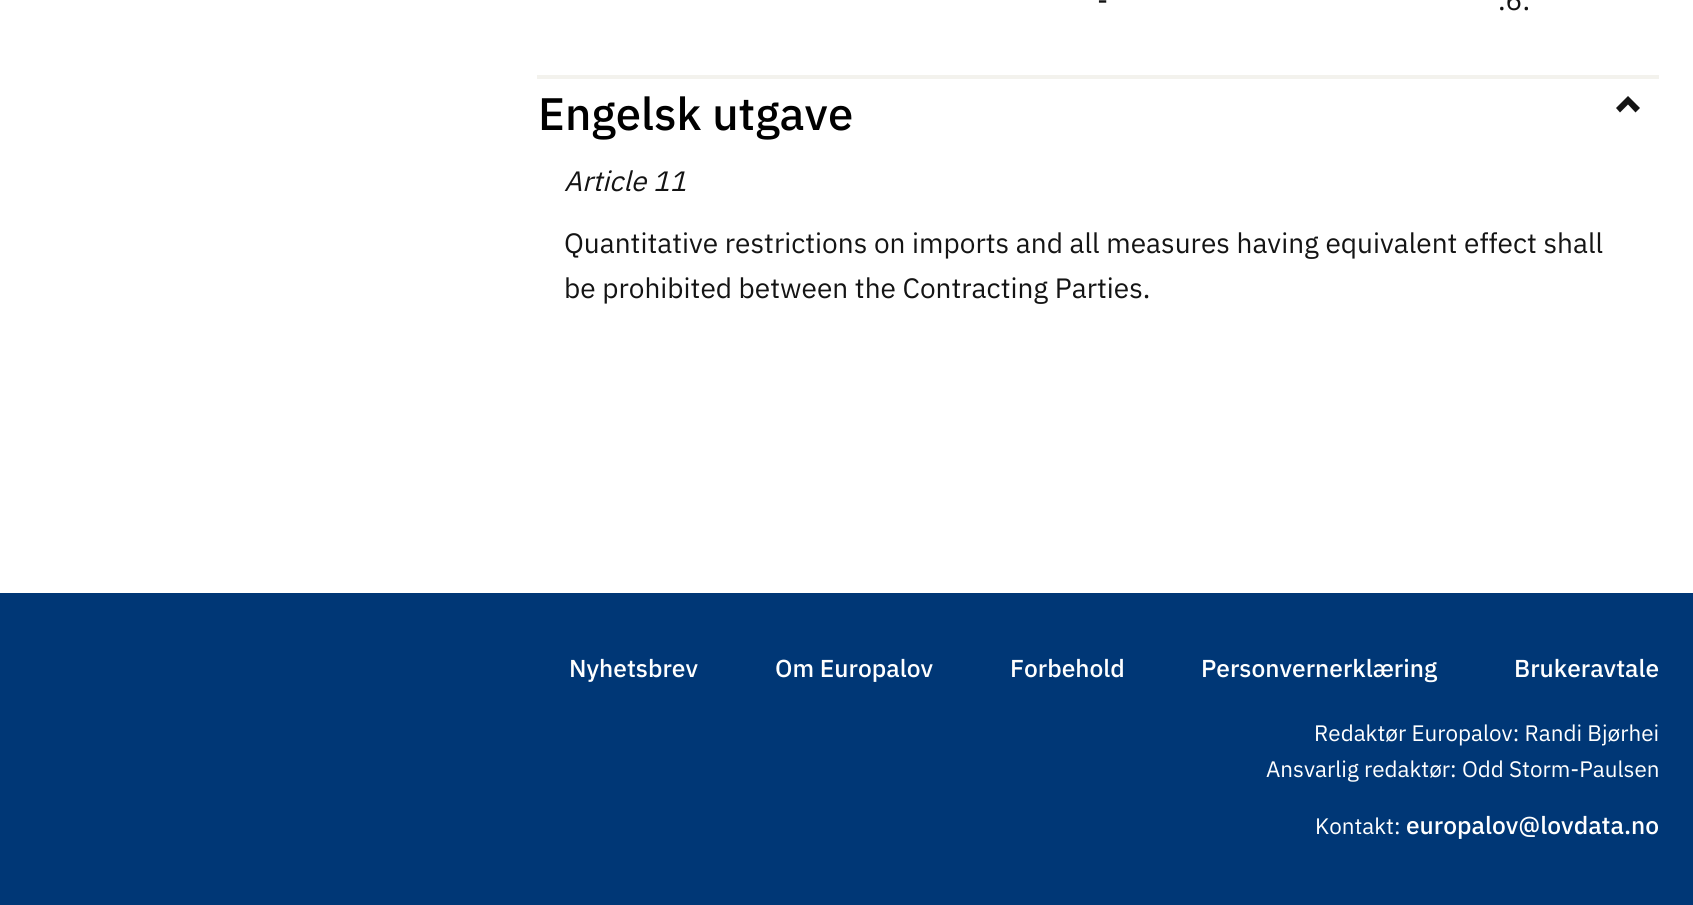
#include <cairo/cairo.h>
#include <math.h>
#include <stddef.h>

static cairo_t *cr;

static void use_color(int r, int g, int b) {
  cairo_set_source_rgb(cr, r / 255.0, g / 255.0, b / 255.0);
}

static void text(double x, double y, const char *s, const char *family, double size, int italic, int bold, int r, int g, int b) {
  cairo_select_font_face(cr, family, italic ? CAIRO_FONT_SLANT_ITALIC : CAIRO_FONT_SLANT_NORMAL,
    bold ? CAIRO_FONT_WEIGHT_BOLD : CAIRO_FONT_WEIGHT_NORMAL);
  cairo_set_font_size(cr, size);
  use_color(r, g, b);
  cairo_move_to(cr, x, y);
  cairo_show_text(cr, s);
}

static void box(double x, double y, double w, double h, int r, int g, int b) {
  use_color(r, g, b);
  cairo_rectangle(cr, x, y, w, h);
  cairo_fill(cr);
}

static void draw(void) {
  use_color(255, 255, 255);
  cairo_paint(cr);
  box(537, 75, 1122, 4, 243, 242, 237);
  use_color(20, 20, 20);
  cairo_new_path(cr);
  cairo_move_to(cr, 1640, 108);
  cairo_line_to(cr, 1635.5, 112.5);
  cairo_line_to(cr, 1628, 104.5);
  cairo_line_to(cr, 1620, 112.5);
  cairo_line_to(cr, 1616, 108);
  cairo_line_to(cr, 1628, 96);
  cairo_close_path(cr);
  cairo_fill(cr);
  box(0, 593, 1693, 312, 0, 55, 118);
  text(1097, 10, "-", "IBM Plex Sans", 28, 0, 0, 20, 20, 20);
  text(1498, 10, ".6.", "IBM Plex Sans", 28, 0, 0, 20, 20, 20);
  text(538, 130, "Engelsk utgave", "IBM Plex Sans Medium", 45.5, 0, 0, 0, 0, 0);
  text(564, 191, "Article 11", "IBM Plex Sans", 28, 1, 0, 20, 20, 20);
  text(564, 253, "Quantitative restrictions on imports and all measures having equivalent effect shall", "IBM Plex Sans", 28, 0, 0, 20, 20, 20);
  text(564, 298, "be prohibited between the Contracting Parties.", "IBM Plex Sans", 28, 0, 0, 20, 20, 20);
  text(569, 677, "Nyhetsbrev", "IBM Plex Sans Medium", 24.5, 0, 0, 255, 255, 255);
  text(775, 677, "Om Europalov", "IBM Plex Sans Medium", 24.5, 0, 0, 255, 255, 255);
  text(1010, 677, "Forbehold", "IBM Plex Sans Medium", 24.5, 0, 0, 255, 255, 255);
  text(1201, 677, "Personvernerklæring", "IBM Plex Sans Medium", 24.5, 0, 0, 255, 255, 255);
  text(1514, 677, "Brukeravtale", "IBM Plex Sans Medium", 24.5, 0, 0, 255, 255, 255);
  text(1314, 741, "Redaktør Europalov: Randi Bjørhei", "IBM Plex Sans", 22.4, 0, 0, 255, 255, 255);
  text(1266, 777, "Ansvarlig redaktør: Odd Storm-Paulsen", "IBM Plex Sans", 22.4, 0, 0, 255, 255, 255);
  text(1315, 834, "Kontakt:", "IBM Plex Sans", 22.4, 0, 0, 255, 255, 255);
  text(1406, 834, "europalov@lovdata.no", "IBM Plex Sans Medium", 24.5, 0, 0, 255, 255, 255);
}

int main(void) {
  cairo_surface_t *surface = cairo_image_surface_create(CAIRO_FORMAT_RGB24, 1693, 905);
  cr = cairo_create(surface);
  cairo_font_options_t *options = cairo_font_options_create();
  cairo_font_options_set_hint_metrics(options, CAIRO_HINT_METRICS_OFF);
  cairo_font_options_set_hint_style(options, CAIRO_HINT_STYLE_NONE);
  cairo_set_font_options(cr, options);
  cairo_set_miter_limit(cr, 4);
  draw();
  cairo_surface_write_to_png(surface, "out.png");
  cairo_font_options_destroy(options);
  cairo_destroy(cr);
  cairo_surface_destroy(surface);
  return 0;
}
